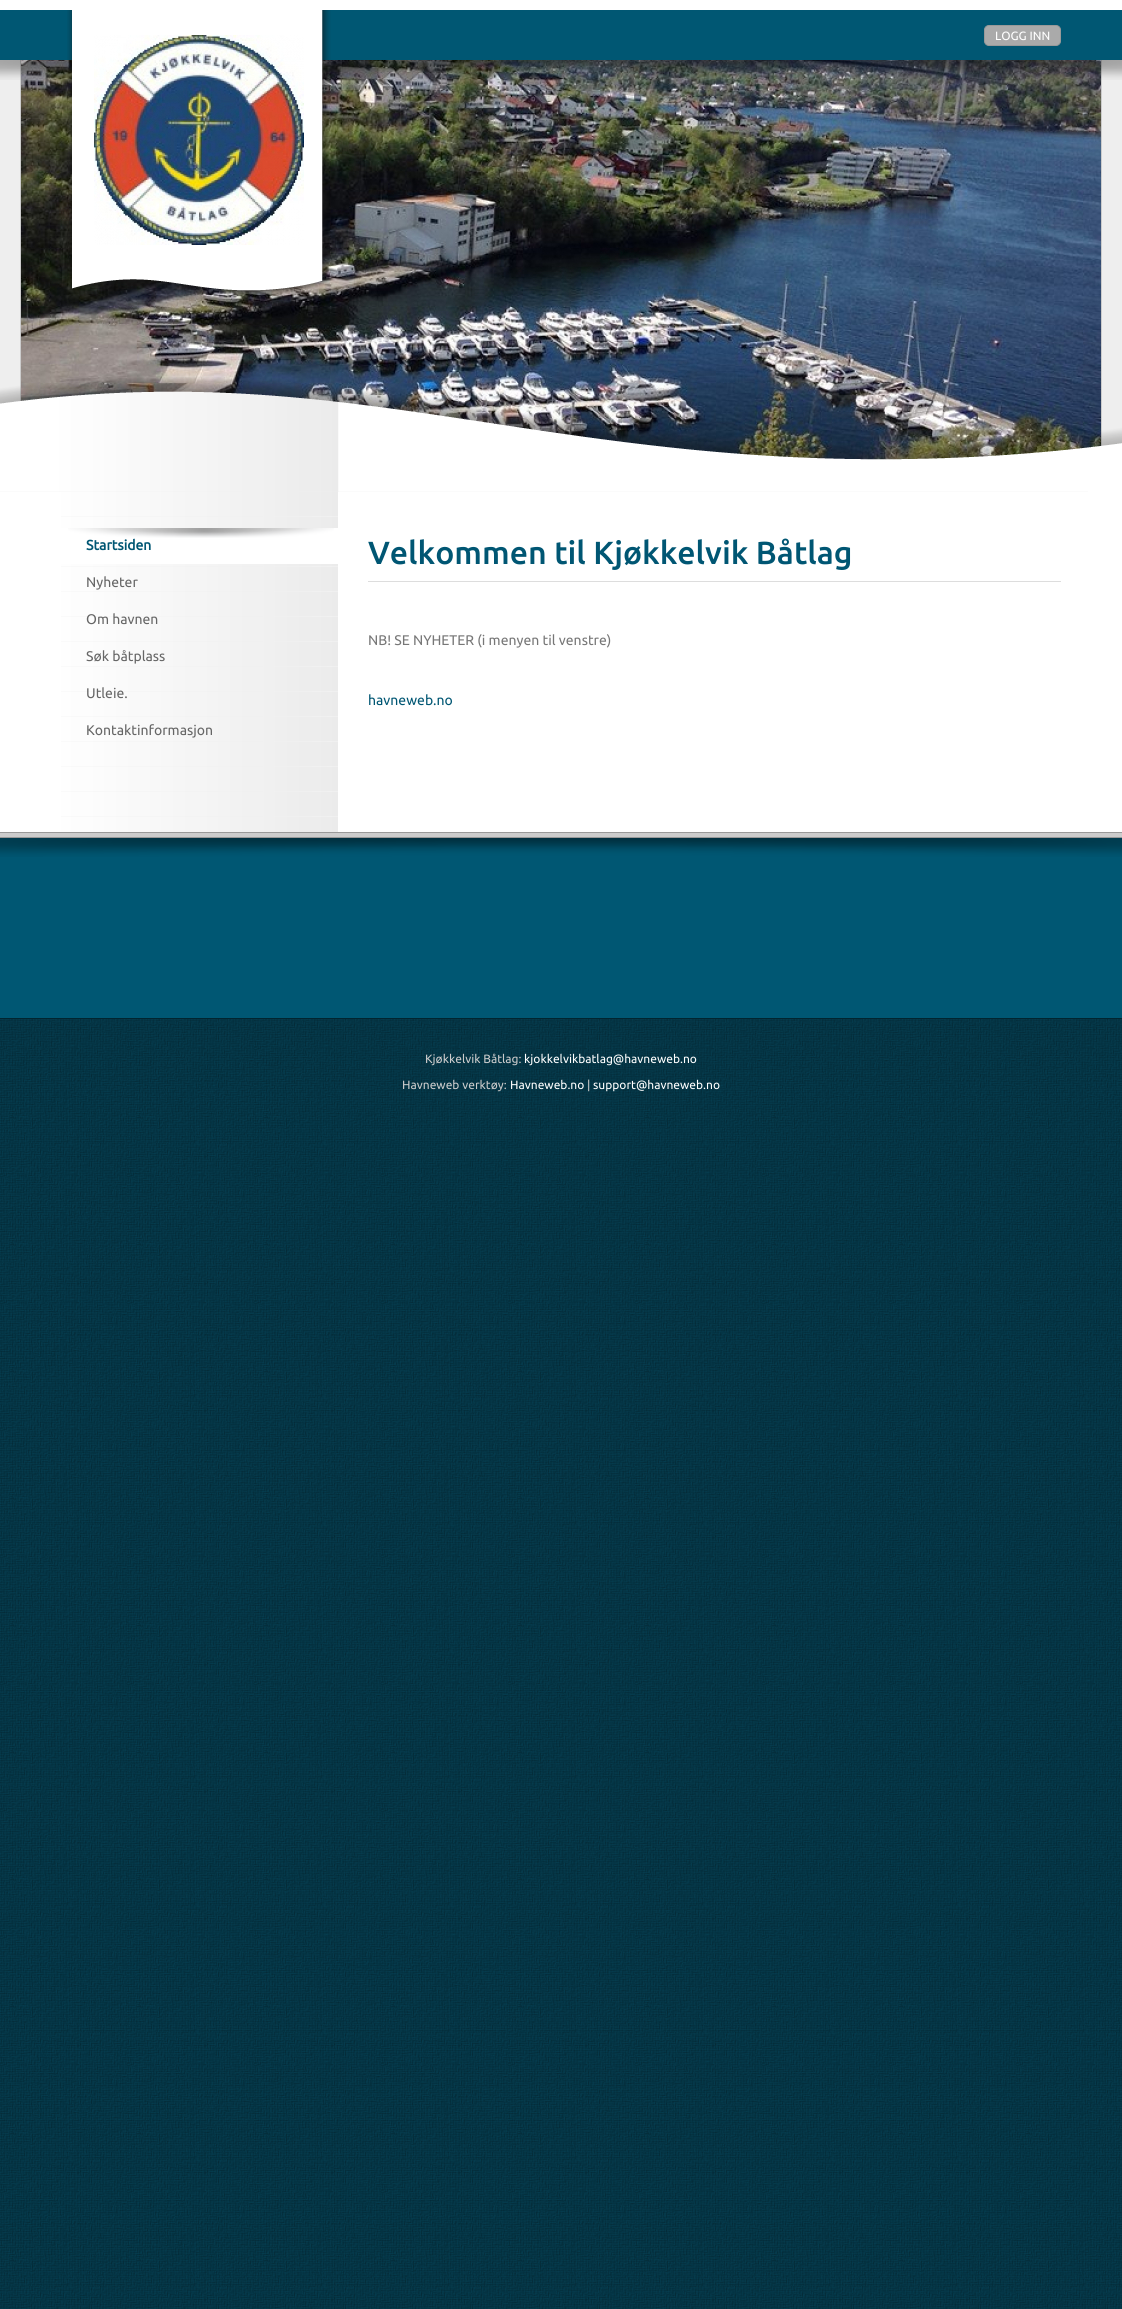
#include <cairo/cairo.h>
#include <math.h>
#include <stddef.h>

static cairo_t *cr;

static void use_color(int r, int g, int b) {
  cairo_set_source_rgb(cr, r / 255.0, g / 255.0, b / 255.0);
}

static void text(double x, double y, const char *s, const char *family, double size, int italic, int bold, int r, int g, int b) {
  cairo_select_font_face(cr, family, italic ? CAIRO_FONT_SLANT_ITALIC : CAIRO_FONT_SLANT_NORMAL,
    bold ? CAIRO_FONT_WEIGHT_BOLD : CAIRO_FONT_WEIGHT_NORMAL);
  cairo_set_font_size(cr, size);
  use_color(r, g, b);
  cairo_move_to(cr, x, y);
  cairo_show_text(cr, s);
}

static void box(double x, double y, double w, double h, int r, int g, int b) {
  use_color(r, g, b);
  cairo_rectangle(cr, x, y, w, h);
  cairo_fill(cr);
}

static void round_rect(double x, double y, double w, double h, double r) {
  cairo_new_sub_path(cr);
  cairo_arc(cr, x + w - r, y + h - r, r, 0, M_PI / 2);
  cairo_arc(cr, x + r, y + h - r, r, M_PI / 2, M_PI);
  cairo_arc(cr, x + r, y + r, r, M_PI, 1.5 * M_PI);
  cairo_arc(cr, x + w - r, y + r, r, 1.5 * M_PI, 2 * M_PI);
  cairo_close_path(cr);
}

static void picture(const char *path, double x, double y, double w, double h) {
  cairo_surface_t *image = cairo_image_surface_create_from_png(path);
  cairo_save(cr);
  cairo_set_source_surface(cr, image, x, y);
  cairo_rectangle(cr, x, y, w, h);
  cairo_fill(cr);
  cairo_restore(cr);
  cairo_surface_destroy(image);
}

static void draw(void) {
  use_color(255, 255, 255);
  cairo_paint(cr);
  picture("img_01.png", 0, 1019, 1122, 1290);
  box(0, 10, 1122, 50, 0, 87, 115);
  box(0, 60, 1122, 432, 238, 238, 238);
  box(1101, 60, 1, 386, 204, 204, 204);
  box(20, 60, 1, 341, 204, 204, 204);
  picture("img_06.png", 21, 60, 1080, 400);
  picture("img_05.png", 0, 60, 1122, 20);
  picture("img_02.png", 67, 10, 264, 253);
  picture("img_03.png", 94, 35, 210, 210);
  picture("img_04.png", 70, 263, 261, 35);
  use_color(170, 170, 170);
  round_rect(984.5, 25.5, 76, 20, 4.5);
  cairo_fill_preserve(cr);
  use_color(153, 153, 153);
  cairo_set_line_width(cr, 1);
  cairo_stroke(cr);
  picture("img_07.png", 0, 377, 1122, 115);
  picture("img_08.png", 61, 492, 277, 340);
  box(61, 528, 277, 36, 255, 255, 255);
  picture("img_09.png", 68, 528, 266, 10);
  box(368, 581, 693, 1, 221, 221, 221);
  box(0, 833, 1122, 4, 204, 204, 204);
  box(0, 832, 1122, 1, 153, 153, 153);
  box(0, 837, 1122, 1, 153, 153, 153);
  box(0, 838, 1122, 180, 0, 87, 115);
  picture("img_10.png", 0, 838, 1122, 19);
  box(0, 1018, 1122, 1, 1, 37, 48);
  text(995, 40, "LOGG INN", "Ubuntu", 12, 0, 0, 255, 255, 255);
  text(86, 550, "Startsiden", "Ubuntu", 14, 0, 1, 0, 86, 115);
  text(86, 587, "Nyheter", "Ubuntu", 14, 0, 0, 102, 102, 102);
  text(86, 624, "Om havnen", "Ubuntu", 14, 0, 0, 102, 102, 102);
  text(86, 661, "Søk båtplass", "Ubuntu", 14, 0, 0, 102, 102, 102);
  text(86, 698, "Utleie.", "Ubuntu", 14, 0, 0, 102, 102, 102);
  text(86, 735, "Kontaktinformasjon", "Ubuntu", 14, 0, 0, 102, 102, 102);
  text(368, 564, "Velkommen til Kjøkkelvik Båtlag", "Ubuntu Medium", 32, 0, 0, 0, 86, 115);
  text(368, 645, "NB! SE NYHETER (i menyen til venstre)", "Ubuntu", 14, 0, 0, 119, 119, 119);
  text(368, 705, "havneweb.no", "Ubuntu", 14, 0, 0, 0, 86, 115);
  text(425, 1063, "Kjøkkelvik Båtlag:", "Ubuntu", 12, 0, 0, 204, 204, 204);
  text(524, 1063, "kjokkelvikbatlag@havneweb.no", "Ubuntu", 12, 0, 0, 255, 255, 255);
  text(402, 1089, "Havneweb verktøy:", "Ubuntu", 12, 0, 0, 204, 204, 204);
  text(510, 1089, "Havneweb.no", "Ubuntu", 12, 0, 0, 255, 255, 255);
  text(587, 1089, "|", "Ubuntu", 12, 0, 0, 204, 204, 204);
  text(593, 1089, "support@havneweb.no", "Ubuntu", 12, 0, 0, 255, 255, 255);
}

int main(void) {
  cairo_surface_t *surface = cairo_image_surface_create(CAIRO_FORMAT_RGB24, 1122, 2309);
  cr = cairo_create(surface);
  cairo_font_options_t *options = cairo_font_options_create();
  cairo_font_options_set_hint_metrics(options, CAIRO_HINT_METRICS_OFF);
  cairo_font_options_set_hint_style(options, CAIRO_HINT_STYLE_NONE);
  cairo_set_font_options(cr, options);
  cairo_set_miter_limit(cr, 4);
  draw();
  cairo_surface_write_to_png(surface, "out.png");
  cairo_font_options_destroy(options);
  cairo_destroy(cr);
  cairo_surface_destroy(surface);
  return 0;
}
